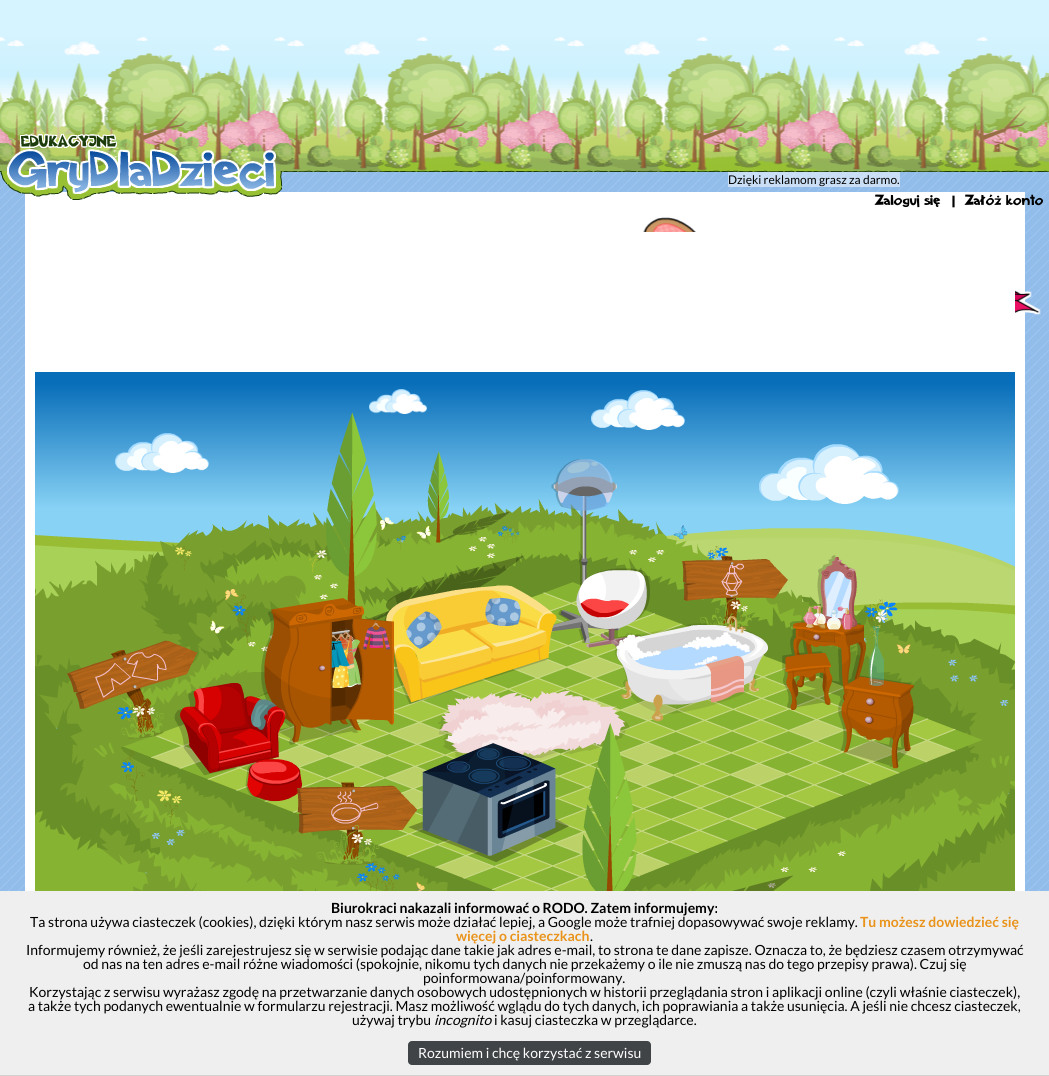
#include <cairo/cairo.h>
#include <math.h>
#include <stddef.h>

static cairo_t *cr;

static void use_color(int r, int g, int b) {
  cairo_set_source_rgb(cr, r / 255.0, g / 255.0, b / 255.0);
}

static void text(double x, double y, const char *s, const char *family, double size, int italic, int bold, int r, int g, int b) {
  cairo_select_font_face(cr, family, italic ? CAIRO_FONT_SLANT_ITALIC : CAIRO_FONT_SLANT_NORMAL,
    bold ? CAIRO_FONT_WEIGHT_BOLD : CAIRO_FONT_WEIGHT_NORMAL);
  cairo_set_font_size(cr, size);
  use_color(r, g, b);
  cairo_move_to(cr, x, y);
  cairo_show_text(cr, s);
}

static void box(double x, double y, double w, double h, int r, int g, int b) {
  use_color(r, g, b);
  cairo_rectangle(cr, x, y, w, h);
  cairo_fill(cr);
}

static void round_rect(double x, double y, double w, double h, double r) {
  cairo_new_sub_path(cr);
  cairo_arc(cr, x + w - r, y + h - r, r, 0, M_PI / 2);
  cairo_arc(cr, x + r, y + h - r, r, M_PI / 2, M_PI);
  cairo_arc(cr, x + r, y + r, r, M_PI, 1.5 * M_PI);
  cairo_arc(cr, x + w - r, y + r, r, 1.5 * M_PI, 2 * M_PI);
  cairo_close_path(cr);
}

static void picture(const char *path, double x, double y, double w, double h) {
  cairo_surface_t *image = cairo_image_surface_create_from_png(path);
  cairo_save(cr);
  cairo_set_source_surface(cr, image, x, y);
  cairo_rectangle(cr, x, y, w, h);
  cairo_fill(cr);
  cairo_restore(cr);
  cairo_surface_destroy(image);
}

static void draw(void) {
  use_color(255, 255, 255);
  cairo_paint(cr);
  picture("img_01.png", 0, 172, 1049, 719);
  box(0, 0, 1049, 37, 213, 244, 255);
  picture("img_02.png", 0, 37, 1049, 135);
  box(25, 192, 1000, 699, 255, 255, 255);
  picture("img_03.png", 0, 133, 283, 67);
  cairo_set_source_rgba(cr, 1, 1, 1, 0.5);
  cairo_rectangle(cr, 728, 172, 172, 15);
  cairo_fill(cr);
  picture("img_04.png", 641, 217, 59, 15);
  picture("img_05.png", 1015, 288, 26, 28);
  picture("img_06.png", 35, 372, 980, 513);
  picture("img_07.png", 369, 389, 58, 25);
  picture("img_08.png", 591, 390, 94, 40);
  picture("img_09.png", 115, 433, 94, 40);
  picture("img_10.png", 759, 444, 140, 60);
  picture("img_11.png", 35, 412, 980, 479);
  picture("img_12.png", 67, 598, 327, 204);
  picture("img_13.png", 296, 743, 273, 122);
  picture("img_14.png", 551, 459, 363, 310);
  box(0, 891, 1049, 184, 239, 239, 239);
  box(0, 1075, 1049, 1, 211, 208, 208);
  use_color(64, 68, 71);
  round_rect(408, 1041, 243, 24, 4);
  cairo_fill(cr);
  text(728, 184, "Dzięki reklamom grasz za darmo.", "Lato", 12, 0, 0, 0, 0, 0);
  text(875, 205, "Zaloguj się", "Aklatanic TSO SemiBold", 14, 0, 0, 0, 0, 0);
  text(950, 205, "|", "Aklatanic TSO SemiBold", 14, 0, 0, 0, 0, 0);
  text(965, 205, "Załóż konto", "Aklatanic TSO SemiBold", 14, 0, 0, 0, 0, 0);
  text(331, 913, "Biurokraci nakazali informować o RODO. Zatem informujemy:", "Lato", 14, 0, 1, 0, 0, 0);
  text(30, 927, "Ta strona używa ciasteczek (cookies), dzięki którym nasz serwis może działać lepiej, a Google może trafniej dopasowywać swoje reklamy.", "Lato", 14, 0, 0, 0, 0, 0);
  text(860, 927, "Tu możesz dowiedzieć się", "Lato", 14, 0, 1, 233, 147, 26);
  text(456, 941, "więcej o ciasteczkach", "Lato", 14, 0, 1, 233, 147, 26);
  text(590, 941, ".", "Lato", 14, 0, 0, 0, 0, 0);
  text(26, 955, "Informujemy również, że jeśli zarejestrujesz się w serwisie podając dane takie jak adres e-mail, to strona te dane zapisze. Oznacza to, że będziesz czasem otrzymywać", "Lato", 14, 0, 0, 0, 0, 0);
  text(83, 969, "od nas na ten adres e-mail różne wiadomości (spokojnie, nikomu tych danych nie przekażemy o ile nie zmuszą nas do tego przepisy prawa). Czuj się", "Lato", 14, 0, 0, 0, 0, 0);
  text(423, 983, "poinformowana/poinformowany.", "Lato", 14, 0, 0, 0, 0, 0);
  text(29, 997, "Korzystając z serwisu wyrażasz zgodę na przetwarzanie danych osobowych udostępnionych w historii przeglądania stron i aplikacji online (czyli właśnie ciasteczek),", "Lato", 14, 0, 0, 0, 0, 0);
  text(28, 1011, "a także tych podanych ewentualnie w formularzu rejestracji. Masz możliwość wglądu do tych danych, ich poprawiania a także usunięcia. A jeśli nie chcesz ciasteczek,", "Lato", 14, 0, 0, 0, 0, 0);
  text(352, 1025, "używaj trybu", "Lato", 14, 0, 0, 0, 0, 0);
  text(434, 1025, "incognito", "Lato", 14, 1, 0, 0, 0, 0);
  text(494, 1025, "i kasuj ciasteczka w przeglądarce.", "Lato", 14, 0, 0, 0, 0, 0);
  text(418, 1058, "Rozumiem i chcę korzystać z serwisu", "Lato", 14, 0, 0, 255, 255, 255);
}

int main(void) {
  cairo_surface_t *surface = cairo_image_surface_create(CAIRO_FORMAT_RGB24, 1049, 1076);
  cr = cairo_create(surface);
  cairo_font_options_t *options = cairo_font_options_create();
  cairo_font_options_set_hint_metrics(options, CAIRO_HINT_METRICS_OFF);
  cairo_font_options_set_hint_style(options, CAIRO_HINT_STYLE_NONE);
  cairo_set_font_options(cr, options);
  cairo_set_miter_limit(cr, 4);
  draw();
  cairo_surface_write_to_png(surface, "out.png");
  cairo_font_options_destroy(options);
  cairo_destroy(cr);
  cairo_surface_destroy(surface);
  return 0;
}
